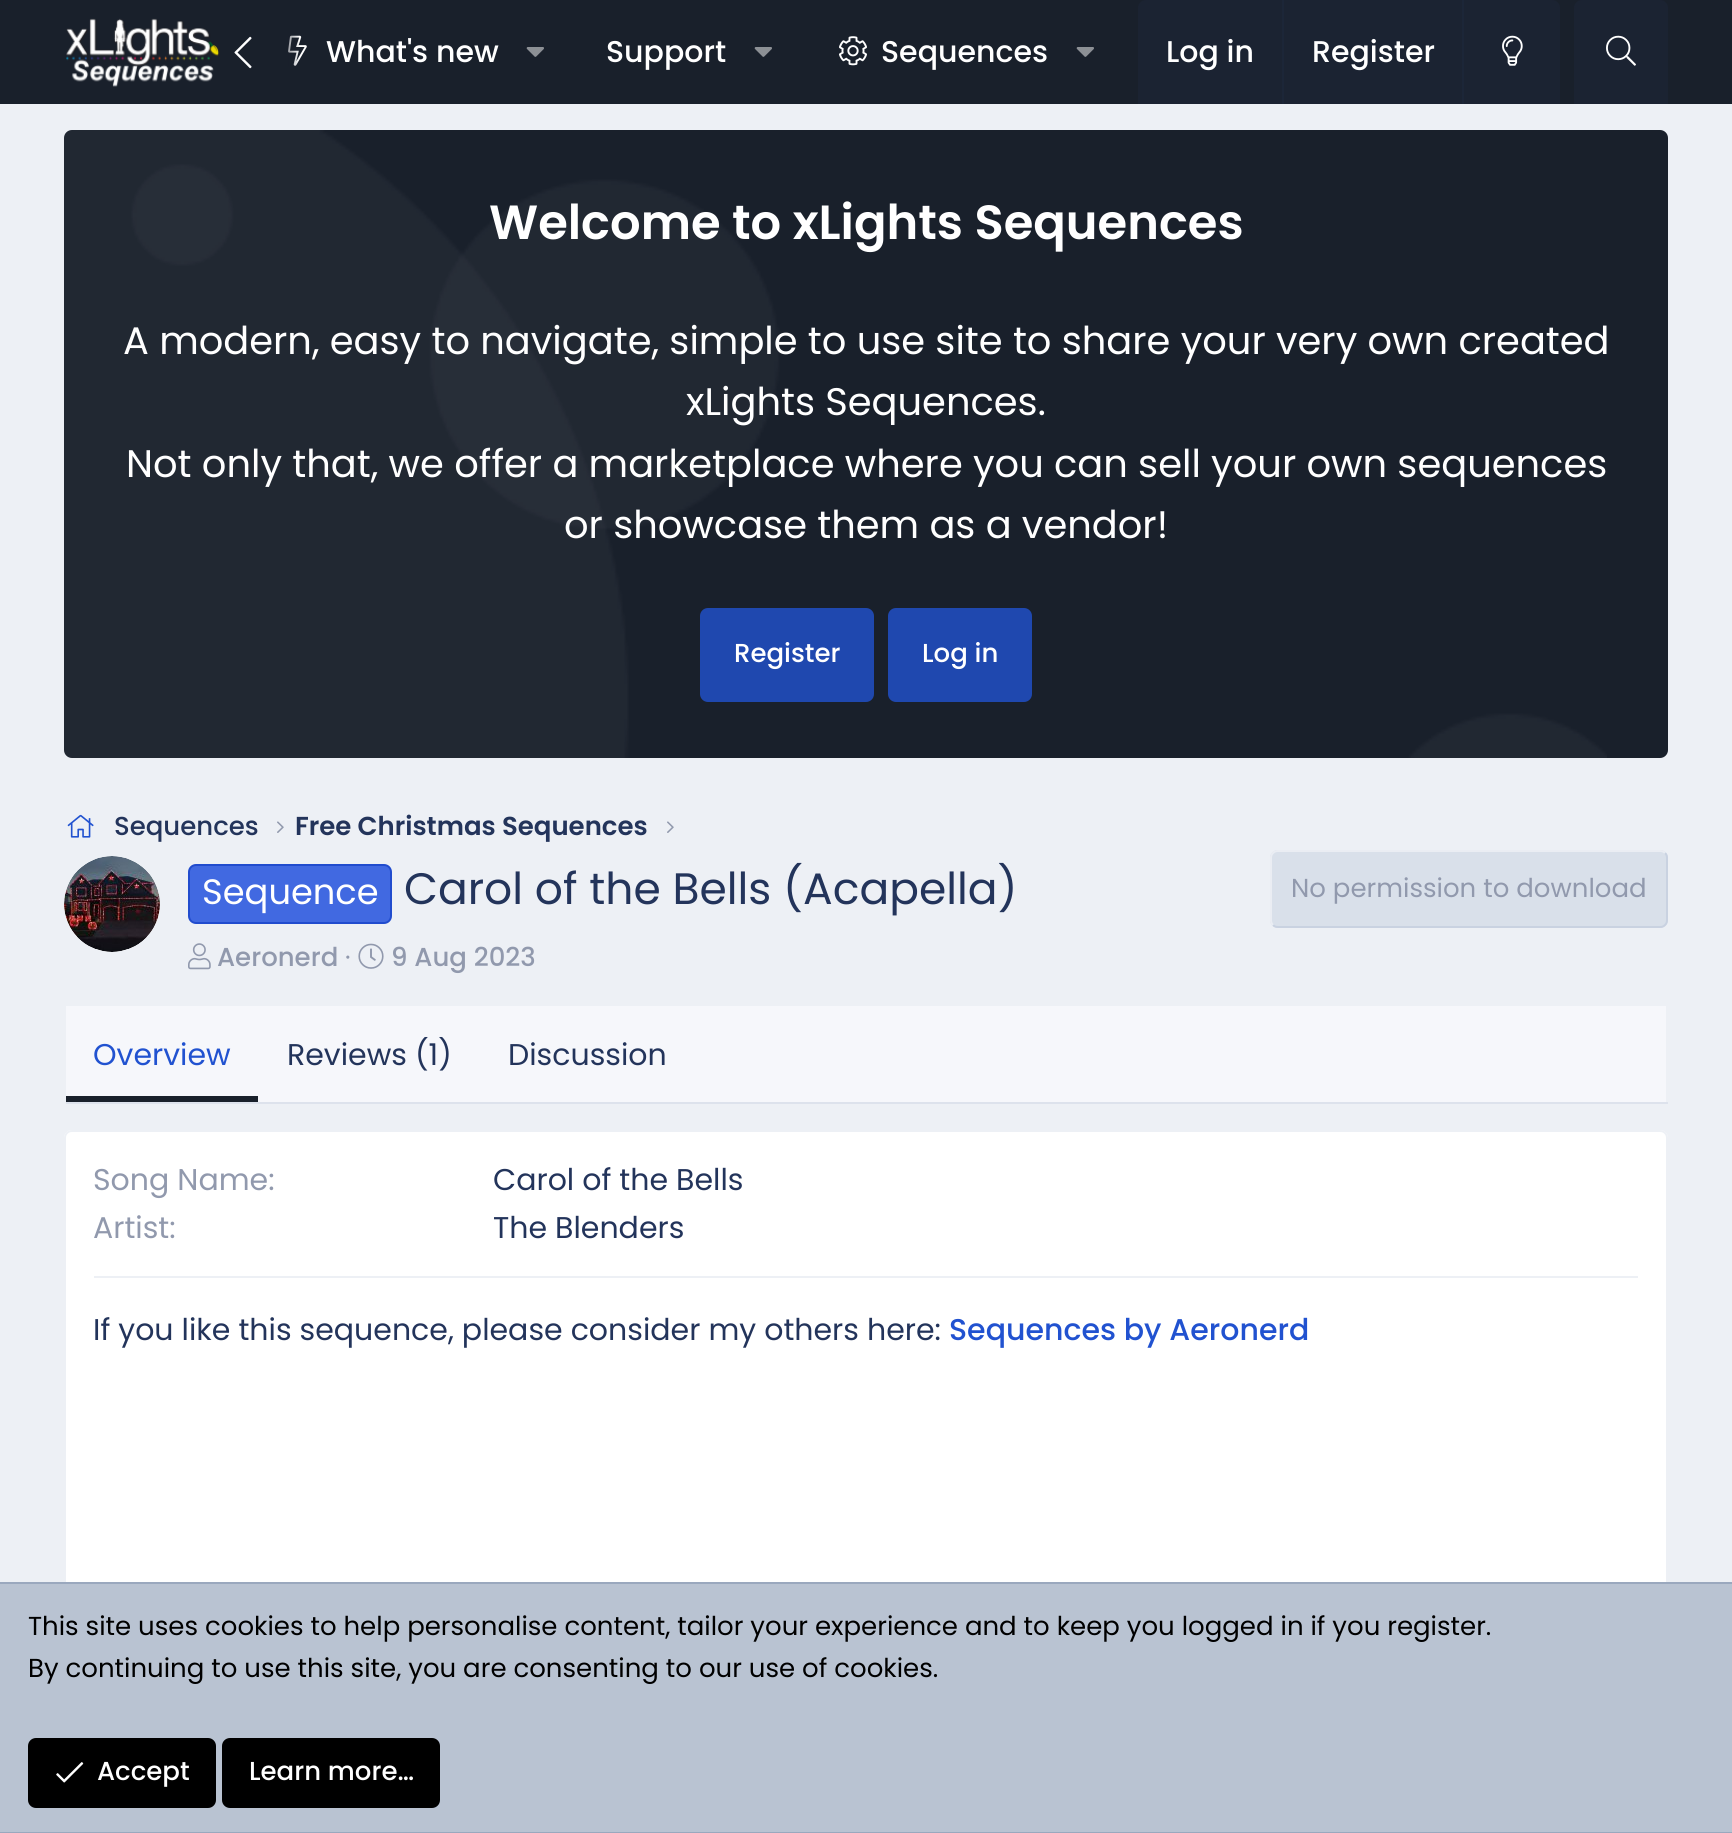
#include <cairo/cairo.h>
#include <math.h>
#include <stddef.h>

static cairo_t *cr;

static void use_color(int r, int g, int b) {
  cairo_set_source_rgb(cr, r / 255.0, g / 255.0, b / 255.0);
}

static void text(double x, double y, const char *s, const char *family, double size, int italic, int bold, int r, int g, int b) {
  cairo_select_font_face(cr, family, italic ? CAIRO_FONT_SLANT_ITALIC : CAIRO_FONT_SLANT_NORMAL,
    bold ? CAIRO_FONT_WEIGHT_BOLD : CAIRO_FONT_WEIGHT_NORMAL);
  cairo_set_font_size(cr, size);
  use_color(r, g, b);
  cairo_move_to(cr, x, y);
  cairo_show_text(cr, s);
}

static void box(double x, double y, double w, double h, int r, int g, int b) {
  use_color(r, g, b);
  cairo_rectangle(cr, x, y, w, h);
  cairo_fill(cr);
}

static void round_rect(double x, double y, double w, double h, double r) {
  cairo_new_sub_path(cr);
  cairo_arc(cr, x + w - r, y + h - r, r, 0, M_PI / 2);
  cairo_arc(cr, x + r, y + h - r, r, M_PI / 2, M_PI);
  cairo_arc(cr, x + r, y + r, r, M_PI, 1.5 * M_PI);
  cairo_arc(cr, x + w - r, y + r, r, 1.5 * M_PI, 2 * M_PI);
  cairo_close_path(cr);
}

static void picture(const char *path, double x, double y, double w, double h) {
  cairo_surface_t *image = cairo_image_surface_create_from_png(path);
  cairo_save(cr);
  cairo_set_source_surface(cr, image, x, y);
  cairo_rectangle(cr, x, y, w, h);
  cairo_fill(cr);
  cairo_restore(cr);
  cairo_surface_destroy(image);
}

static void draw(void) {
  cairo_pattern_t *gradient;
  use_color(237, 240, 245);
  cairo_paint(cr);
  box(0, 0, 1732, 104, 25, 32, 43);
  picture("img_01.png", 66, 18, 154, 69);
  picture("img_03.png", 288, 35, 19, 31);
  gradient = cairo_pattern_create_linear(220, 52, 300, 52);
  cairo_pattern_add_color_stop_rgba(gradient, 0.66, 0.098, 0.125, 0.169, 1);
  cairo_pattern_add_color_stop_rgba(gradient, 1, 0.098, 0.125, 0.169, 0);
  cairo_set_source(cr, gradient);
  cairo_pattern_destroy(gradient);
  cairo_rectangle(cr, 288, 35, 11, 31);
  cairo_fill(cr);
  picture("img_02.png", 234, 36, 18, 33);
  picture("img_04.png", 526, 47, 18, 10);
  picture("img_04.png", 754, 47, 18, 10);
  picture("img_05.png", 839, 36, 28, 30);
  picture("img_04.png", 1076, 47, 18, 10);
  use_color(27, 35, 50);
  cairo_new_path(cr);
  cairo_move_to(cr, 1146, 0);
  cairo_line_to(cr, 1552, 0);
  cairo_curve_to(cr, 1556.5, 0, 1560, 3.5, 1560, 8);
  cairo_line_to(cr, 1560, 104);
  cairo_line_to(cr, 1138, 104);
  cairo_line_to(cr, 1138, 8);
  cairo_curve_to(cr, 1138, 3.5, 1141.5, 0, 1146, 0);
  cairo_close_path(cr);
  cairo_fill(cr);
  box(1282, 0, 2, 104, 28, 38, 56);
  box(1462, 0, 2, 104, 28, 38, 56);
  picture("img_06.png", 1502, 35, 21, 31);
  use_color(27, 35, 50);
  cairo_new_path(cr);
  cairo_move_to(cr, 1582, 0);
  cairo_line_to(cr, 1660, 0);
  cairo_curve_to(cr, 1664.5, 0, 1668, 3.5, 1668, 8);
  cairo_line_to(cr, 1668, 104);
  cairo_line_to(cr, 1574, 104);
  cairo_line_to(cr, 1574, 8);
  cairo_curve_to(cr, 1574, 3.5, 1577.5, 0, 1582, 0);
  cairo_close_path(cr);
  cairo_fill(cr);
  picture("img_07.png", 1606, 35, 30, 31);
  use_color(25, 32, 43);
  round_rect(64, 130, 1604, 628, 8);
  cairo_fill(cr);
  picture("img_08.png", 64, 130, 1543, 628);
  use_color(31, 72, 175);
  round_rect(701, 609, 172, 92, 7);
  cairo_fill_preserve(cr);
  cairo_stroke(cr);
  round_rect(889, 609, 142, 92, 7);
  cairo_fill_preserve(cr);
  cairo_stroke(cr);
  picture("img_09.png", 67, 814, 27, 24);
  picture("img_10.png", 277, 821, 7, 12);
  picture("img_10.png", 667, 821, 7, 12);
  use_color(255, 255, 255);
  cairo_arc(cr, 112, 904, 48, 0, 2 * M_PI);
  cairo_fill(cr);
  picture("img_11.png", 64, 856, 96, 96);
  use_color(65, 105, 225);
  round_rect(189, 865, 202, 58, 7);
  cairo_fill_preserve(cr);
  use_color(33, 76, 206);
  cairo_stroke(cr);
  use_color(217, 224, 234);
  round_rect(1270, 850, 398, 78, 8);
  cairo_fill(cr);
  cairo_new_path(cr);
  cairo_move_to(cr, 1665, 853);
  cairo_curve_to(cr, 1666.5, 854.5, 1667, 856, 1667, 858);
  cairo_line_to(cr, 1667, 920);
  cairo_curve_to(cr, 1667, 922, 1666.5, 923.5, 1665, 925);
  cairo_curve_to(cr, 1663.5, 926.5, 1662, 927, 1660, 927);
  cairo_line_to(cr, 1278, 927);
  cairo_curve_to(cr, 1276, 927, 1274.5, 926.5, 1273, 925);
  use_color(201, 210, 225);
  cairo_stroke(cr);
  cairo_new_path(cr);
  cairo_move_to(cr, 1273, 925);
  cairo_curve_to(cr, 1271.5, 923.5, 1271, 922, 1271, 920);
  cairo_line_to(cr, 1271, 858);
  cairo_curve_to(cr, 1271, 856, 1271.5, 854.5, 1273, 853);
  cairo_curve_to(cr, 1274.5, 851.5, 1276, 851, 1278, 851);
  cairo_line_to(cr, 1660, 851);
  cairo_curve_to(cr, 1662, 851, 1663.5, 851.5, 1665, 853);
  use_color(234, 237, 243);
  cairo_stroke(cr);
  picture("img_12.png", 188, 943, 23, 27);
  picture("img_13.png", 358, 943, 26, 26);
  box(66, 1006, 1600, 96, 246, 247, 251);
  box(64, 1102, 1604, 2, 221, 226, 236);
  box(64, 1102, 2, 2, 237, 240, 245);
  box(66, 1096, 192, 6, 25, 32, 43);
  use_color(255, 255, 255);
  round_rect(64, 1130, 1604, 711, 8);
  cairo_fill(cr);
  cairo_new_path(cr);
  cairo_move_to(cr, 67, 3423);
  cairo_curve_to(cr, 65.5, 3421.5, 65, 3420, 65, 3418);
  cairo_line_to(cr, 65, 1138);
  cairo_curve_to(cr, 65, 1136, 65.5, 1134.5, 67, 1133);
  cairo_curve_to(cr, 68.5, 1131.5, 70, 1131, 72, 1131);
  cairo_line_to(cr, 1660, 1131);
  cairo_curve_to(cr, 1662, 1131, 1663.5, 1131.5, 1665, 1133);
  cairo_curve_to(cr, 1666.5, 1134.5, 1667, 1136, 1667, 1138);
  cairo_line_to(cr, 1667, 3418);
  cairo_curve_to(cr, 1667, 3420, 1666.5, 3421.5, 1665, 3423);
  use_color(237, 240, 245);
  cairo_stroke(cr);
  box(94, 1276, 1544, 2, 237, 240, 245);
  box(0, 1584, 1732, 248, 185, 195, 210);
  box(0, 1582, 1732, 2, 154, 168, 190);
  box(0, 1832, 1732, 1, 154, 168, 190);
  use_color(0, 0, 0);
  round_rect(29, 1739, 186, 68, 7);
  cairo_fill_preserve(cr);
  cairo_stroke(cr);
  picture("img_14.png", 56, 1762, 28, 21);
  round_rect(223, 1739, 216, 68, 7);
  cairo_fill_preserve(cr);
  cairo_stroke(cr);
  text(326, 62, "What's new", "Poppins Medium", 30, 0, 0, 255, 255, 255);
  text(606, 62, "Support", "Poppins Medium", 30, 0, 0, 255, 255, 255);
  text(881, 62, "Sequences", "Poppins Medium", 30, 0, 0, 255, 255, 255);
  text(1166, 62, "Log in", "Poppins Medium", 30, 0, 0, 255, 255, 255);
  text(1312, 62, "Register", "Poppins Medium", 30, 0, 0, 255, 255, 255);
  text(489, 239, "Welcome to xLights Sequences", "Poppins SemiBold", 48, 0, 0, 255, 255, 255);
  text(123, 354, "A modern, easy to navigate, simple to use site to share your very own created", "Poppins", 38.4, 0, 0, 255, 255, 255);
  text(686, 415, "xLights Sequences.", "Poppins", 38.4, 0, 0, 255, 255, 255);
  text(126, 477, "Not only that, we offer a marketplace where you can sell your own sequences", "Poppins", 38.4, 0, 0, 255, 255, 255);
  text(564, 538, "or showcase them as a vendor!", "Poppins", 38.4, 0, 0, 255, 255, 255);
  text(734, 662, "Register", "Poppins Medium", 26, 0, 0, 255, 255, 255);
  text(922, 662, "Log in", "Poppins Medium", 26, 0, 0, 255, 255, 255);
  text(114, 835, "Sequences", "Poppins Medium", 26, 0, 0, 35, 52, 91);
  text(295, 835, "Free Christmas Sequences", "Poppins SemiBold", 26, 0, 0, 35, 52, 91);
  text(202, 904, "Sequence", "Poppins", 35.25, 0, 0, 255, 255, 255);
  text(404, 904, "Carol of the Bells (Acapella)", "Poppins", 44, 0, 0, 35, 52, 91);
  text(1291, 897, "No permission to download", "Poppins", 26, 0, 0, 145, 153, 173);
  text(217, 966, "Aeronerd", "Poppins Medium", 26, 0, 0, 145, 153, 173);
  text(345, 966, "·", "Poppins", 26, 0, 0, 145, 153, 173);
  text(391, 966, "9 Aug 2023", "Poppins Medium", 26, 0, 0, 145, 153, 173);
  text(93, 1065, "Overview", "Poppins", 30, 0, 0, 33, 82, 208);
  text(287, 1065, "Reviews (1)", "Poppins", 30, 0, 0, 35, 52, 91);
  text(508, 1065, "Discussion", "Poppins", 30, 0, 0, 35, 52, 91);
  text(93, 1190, "Song Name:", "Poppins", 30, 0, 0, 145, 153, 173);
  text(493, 1190, "Carol of the Bells", "Poppins", 30, 0, 0, 35, 52, 91);
  text(93, 1238, "Artist:", "Poppins", 30, 0, 0, 145, 153, 173);
  text(493, 1238, "The Blenders", "Poppins", 30, 0, 0, 35, 52, 91);
  text(93, 1340, "If you like this sequence, please consider my others here:", "Poppins", 30, 0, 0, 35, 52, 91);
  text(949, 1340, "Sequences by Aeronerd", "Poppins Medium", 30, 0, 0, 33, 82, 208);
  text(28, 1635, "This site uses cookies to help personalise content, tailor your experience and to keep you logged in if you register.", "Poppins", 26, 0, 0, 0, 0, 0);
  text(28, 1677, "By continuing to use this site, you are consenting to our use of cookies.", "Poppins", 26, 0, 0, 0, 0, 0);
  text(97, 1780, "Accept", "Poppins Medium", 26, 0, 0, 255, 255, 255);
  text(249, 1780, "Learn more…", "Poppins Medium", 26, 0, 0, 255, 255, 255);
}

int main(void) {
  cairo_surface_t *surface = cairo_image_surface_create(CAIRO_FORMAT_RGB24, 1732, 1833);
  cr = cairo_create(surface);
  cairo_font_options_t *options = cairo_font_options_create();
  cairo_font_options_set_hint_metrics(options, CAIRO_HINT_METRICS_OFF);
  cairo_font_options_set_hint_style(options, CAIRO_HINT_STYLE_NONE);
  cairo_set_font_options(cr, options);
  cairo_set_miter_limit(cr, 4);
  draw();
  cairo_surface_write_to_png(surface, "out.png");
  cairo_font_options_destroy(options);
  cairo_destroy(cr);
  cairo_surface_destroy(surface);
  return 0;
}
